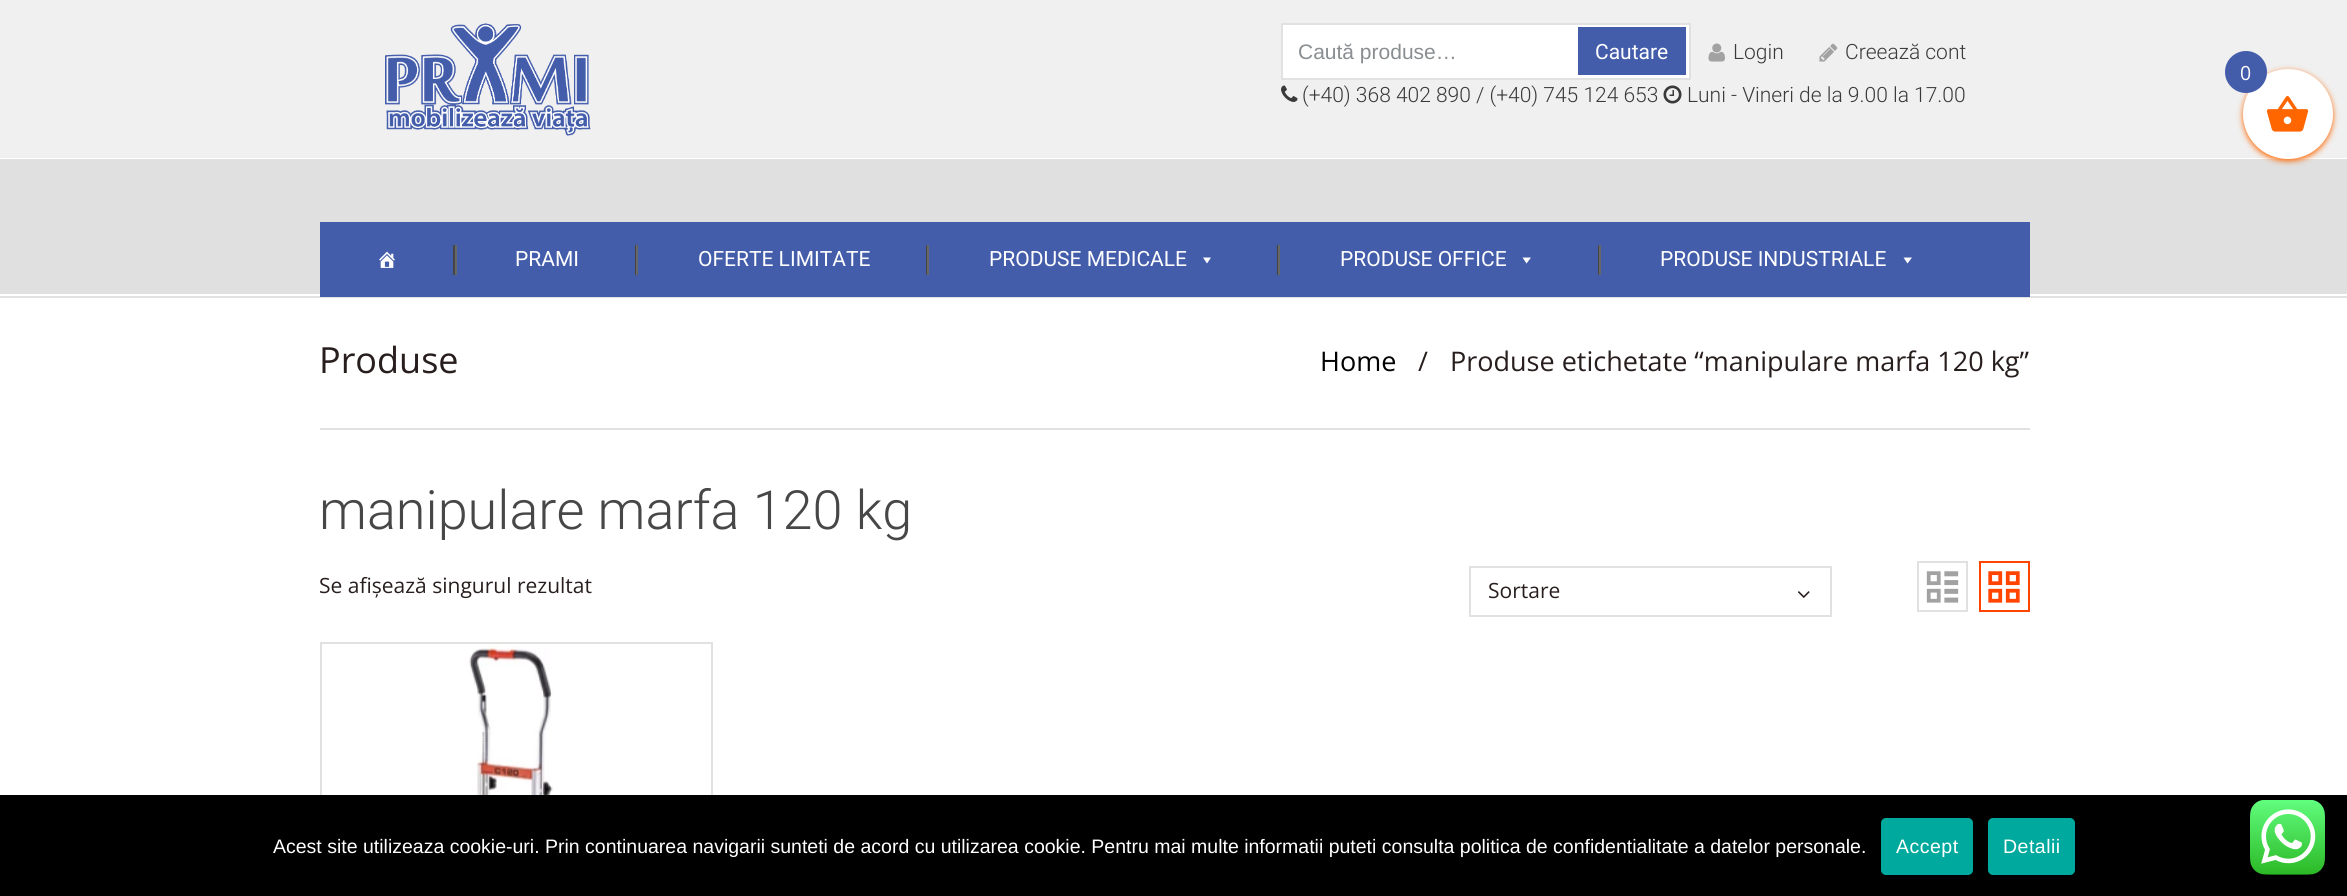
#include <cairo/cairo.h>
#include <math.h>
#include <stddef.h>

static cairo_t *cr;

static void use_color(int r, int g, int b) {
  cairo_set_source_rgb(cr, r / 255.0, g / 255.0, b / 255.0);
}

static void text(double x, double y, const char *s, const char *family, double size, int italic, int bold, int r, int g, int b) {
  cairo_select_font_face(cr, family, italic ? CAIRO_FONT_SLANT_ITALIC : CAIRO_FONT_SLANT_NORMAL,
    bold ? CAIRO_FONT_WEIGHT_BOLD : CAIRO_FONT_WEIGHT_NORMAL);
  cairo_set_font_size(cr, size);
  use_color(r, g, b);
  cairo_move_to(cr, x, y);
  cairo_show_text(cr, s);
}

static void spaced_text(double x, double y, const char *s, double letter, double word) {
  cairo_move_to(cr, x, y);
  while (*s) {
    char ch[5] = {0};
    int n = 0;
    do ch[n++] = *s++; while ((*s & 0xC0) == 0x80);
    cairo_show_text(cr, ch);
    cairo_rel_move_to(cr, letter + word * (*ch == ' '), 0);
  }
}

static void box(double x, double y, double w, double h, int r, int g, int b) {
  use_color(r, g, b);
  cairo_rectangle(cr, x, y, w, h);
  cairo_fill(cr);
}

static void round_rect(double x, double y, double w, double h, double r) {
  cairo_new_sub_path(cr);
  cairo_arc(cr, x + w - r, y + h - r, r, 0, M_PI / 2);
  cairo_arc(cr, x + r, y + h - r, r, M_PI / 2, M_PI);
  cairo_arc(cr, x + r, y + r, r, M_PI, 1.5 * M_PI);
  cairo_arc(cr, x + w - r, y + r, r, 1.5 * M_PI, 2 * M_PI);
  cairo_close_path(cr);
}

static void shadow(double x, double y, double w, double h, double r, double blur, double alpha) {
  cairo_push_group_with_content(cr, CAIRO_CONTENT_ALPHA);
  cairo_set_operator(cr, CAIRO_OPERATOR_SOURCE);
  for (int i = 15; i >= -15 && fmin(w, h) + blur * i / 3 > 0; i -= 2) {
    double e = blur * i / 6;
    cairo_set_source_rgba(cr, 0, 0, 0, alpha * erfc((i - 1) / 8.5) / 2);
    round_rect(x - e, y - e, w + 2 * e, h + 2 * e, fmax(0, fmin(r + e + blur * .6, fmin(w, h) / 2 + e)));
    cairo_fill(cr);
  }
  cairo_pattern_t *soft = cairo_pop_group(cr);
  cairo_mask(cr, soft);
  cairo_pattern_destroy(soft);
}

static void picture(const char *path, double x, double y, double w, double h) {
  cairo_surface_t *image = cairo_image_surface_create_from_png(path);
  cairo_save(cr);
  cairo_set_source_surface(cr, image, x, y);
  cairo_rectangle(cr, x, y, w, h);
  cairo_fill(cr);
  cairo_restore(cr);
  cairo_surface_destroy(image);
}

static void draw(void) {
  use_color(255, 255, 255);
  cairo_paint(cr);
  box(0, 161, 2347, 133, 224, 224, 224);
  box(0, 0, 2347, 158, 240, 240, 240);
  box(0, 159, 2347, 2, 225, 225, 225);
  picture("img_01.png", 385, 23, 206, 113);
  use_color(255, 255, 255);
  cairo_rectangle(cr, 1282, 24, 408, 55);
  cairo_fill_preserve(cr);
  use_color(225, 225, 225);
  cairo_stroke(cr);
  box(1578, 27, 108, 48, 68, 93, 171);
  picture("img_02.png", 1708, 43, 17, 19);
  picture("img_03.png", 1819, 43, 19, 19);
  picture("img_04.png", 1281, 85, 17, 17);
  picture("img_05.png", 1663, 85, 19, 19);
  box(0, 296, 2347, 2, 225, 225, 225);
  box(320, 222, 1710, 75, 68, 93, 171);
  picture("img_06.png", 379, 251, 16, 17);
  box(453, 245, 2, 30, 69, 69, 69);
  box(455, 245, 2, 30, 103, 103, 103);
  box(635, 245, 1, 30, 69, 69, 69);
  box(636, 245, 2, 30, 103, 103, 103);
  box(926, 245, 1, 30, 69, 69, 69);
  box(927, 245, 2, 30, 103, 103, 103);
  use_color(255, 255, 255);
  cairo_new_path(cr);
  cairo_move_to(cr, 1211, 257.5);
  cairo_line_to(cr, 1207, 263.5);
  cairo_line_to(cr, 1203, 257.5);
  cairo_close_path(cr);
  cairo_fill(cr);
  box(1277, 245, 1, 30, 69, 69, 69);
  box(1278, 245, 2, 30, 103, 103, 103);
  use_color(255, 255, 255);
  cairo_new_path(cr);
  cairo_move_to(cr, 1531, 257.5);
  cairo_line_to(cr, 1526.5, 263.5);
  cairo_line_to(cr, 1522.5, 257.5);
  cairo_close_path(cr);
  cairo_fill(cr);
  box(1598, 245, 1, 30, 69, 69, 69);
  box(1599, 245, 2, 30, 103, 103, 103);
  use_color(255, 255, 255);
  cairo_new_path(cr);
  cairo_move_to(cr, 1912, 257.5);
  cairo_line_to(cr, 1907.5, 263.5);
  cairo_line_to(cr, 1903.5, 257.5);
  cairo_close_path(cr);
  cairo_fill(cr);
  box(320, 428, 1710, 2, 225, 225, 225);
  picture("img_07.png", 1798, 591, 12, 7);
  cairo_rectangle(cr, 1470, 567, 361, 49);
  cairo_stroke(cr);
  cairo_rectangle(cr, 1918, 562, 49, 49);
  cairo_stroke(cr);
  picture("img_08.png", 1926, 571, 33, 32);
  cairo_rectangle(cr, 1980, 562, 49, 49);
  use_color(255, 69, 0);
  cairo_stroke(cr);
  picture("img_09.png", 1988, 571, 32, 32);
  cairo_rectangle(cr, 321, 643, 391, 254);
  use_color(225, 225, 225);
  cairo_stroke(cr);
  picture("img_10.png", 469, 645, 84, 150);
  use_color(255, 102, 0);
  shadow(2243, 71, 90, 90, 45, 3, 1);
  use_color(255, 255, 255);
  cairo_arc(cr, 2288, 114, 45, 0, 2 * M_PI);
  cairo_fill(cr);
  use_color(68, 93, 171);
  cairo_arc(cr, 2246, 72, 21, 0, 2 * M_PI);
  cairo_fill(cr);
  picture("img_11.png", 2266, 96, 43, 36);
  box(0, 795, 2347, 101, 0, 0, 0);
  use_color(0, 169, 157);
  round_rect(1881, 818, 92, 57, 5);
  cairo_fill(cr);
  round_rect(1988, 818, 87, 57, 5);
  cairo_fill(cr);
  picture("img_12.png", 2250, 800, 75, 75);
  text(1298, 59, "Caută produse…", "Liberation Sans", 21, 0, 0, 137, 142, 145);
  text(1595, 59, "Cautare", "Roboto", 21, 0, 0, 255, 255, 255);
  text(1733, 59, "Login", "Roboto Light", 21, 0, 0, 58, 58, 58);
  text(1845, 59, "Creează cont", "Roboto Light", 21, 0, 0, 58, 58, 58);
  text(1302, 102, "(+40) 368 402 890 / (+40) 745 124 653", "Roboto Light", 21, 0, 0, 58, 58, 58);
  text(1687, 102, "Luni - Vineri de la 9.00 la 17.00", "Roboto Light", 21, 0, 0, 58, 58, 58);
  text(515, 266, "PRAMI", "Roboto", 21, 0, 0, 255, 255, 255);
  text(698, 266, "OFERTE LIMITATE", "Roboto", 21, 0, 0, 255, 255, 255);
  text(989, 266, "PRODUSE MEDICALE", "Roboto", 21, 0, 0, 255, 255, 255);
  text(1340, 266, "PRODUSE OFFICE", "Roboto", 21, 0, 0, 255, 255, 255);
  text(1660, 266, "PRODUSE INDUSTRIALE", "Roboto", 21, 0, 0, 255, 255, 255);
  text(319, 373, "Produse", "Open Sans", 36, 0, 0, 40, 30, 30);
  text(1320, 371, "Home", "Open Sans", 27, 0, 0, 0, 0, 0);
  text(1418, 371, "/", "Open Sans", 27, 0, 0, 40, 30, 30);
  text(1450, 371, "Produse etichetate “manipulare marfa 120 kg”", "Open Sans", 27, 0, 0, 40, 30, 30);
  text(319, 529, "manipulare marfa 120 kg", "Roboto Light", 54, 0, 0, 72, 71, 71);
  text(319, 593, "Se afișează singurul rezultat", "Open Sans", 21, 0, 0, 40, 30, 30);
  text(1488, 598, "Sortare", "Open Sans", 21, 0, 0, 40, 30, 30);
  text(2240, 80, "0", "Open Sans", 19.5, 0, 0, 255, 255, 255);
  text(273, 853, "Acest site utilizeaza cookie-uri. Prin continuarea navigarii sunteti de acord cu utilizarea cookie. Pentru mai multe informatii puteti consulta politica de confidentialitate a datelor personale.", "Liberation Sans", 19.5, 0, 0, 255, 255, 255);
  spaced_text(1896, 853, "Accept", 0.5, 0);
  spaced_text(2003, 853, "Detalii", 0.5, 0);
}

int main(void) {
  cairo_surface_t *surface = cairo_image_surface_create(CAIRO_FORMAT_RGB24, 2347, 896);
  cr = cairo_create(surface);
  cairo_font_options_t *options = cairo_font_options_create();
  cairo_font_options_set_hint_metrics(options, CAIRO_HINT_METRICS_OFF);
  cairo_font_options_set_hint_style(options, CAIRO_HINT_STYLE_NONE);
  cairo_set_font_options(cr, options);
  cairo_set_miter_limit(cr, 4);
  draw();
  cairo_surface_write_to_png(surface, "out.png");
  cairo_font_options_destroy(options);
  cairo_destroy(cr);
  cairo_surface_destroy(surface);
  return 0;
}
